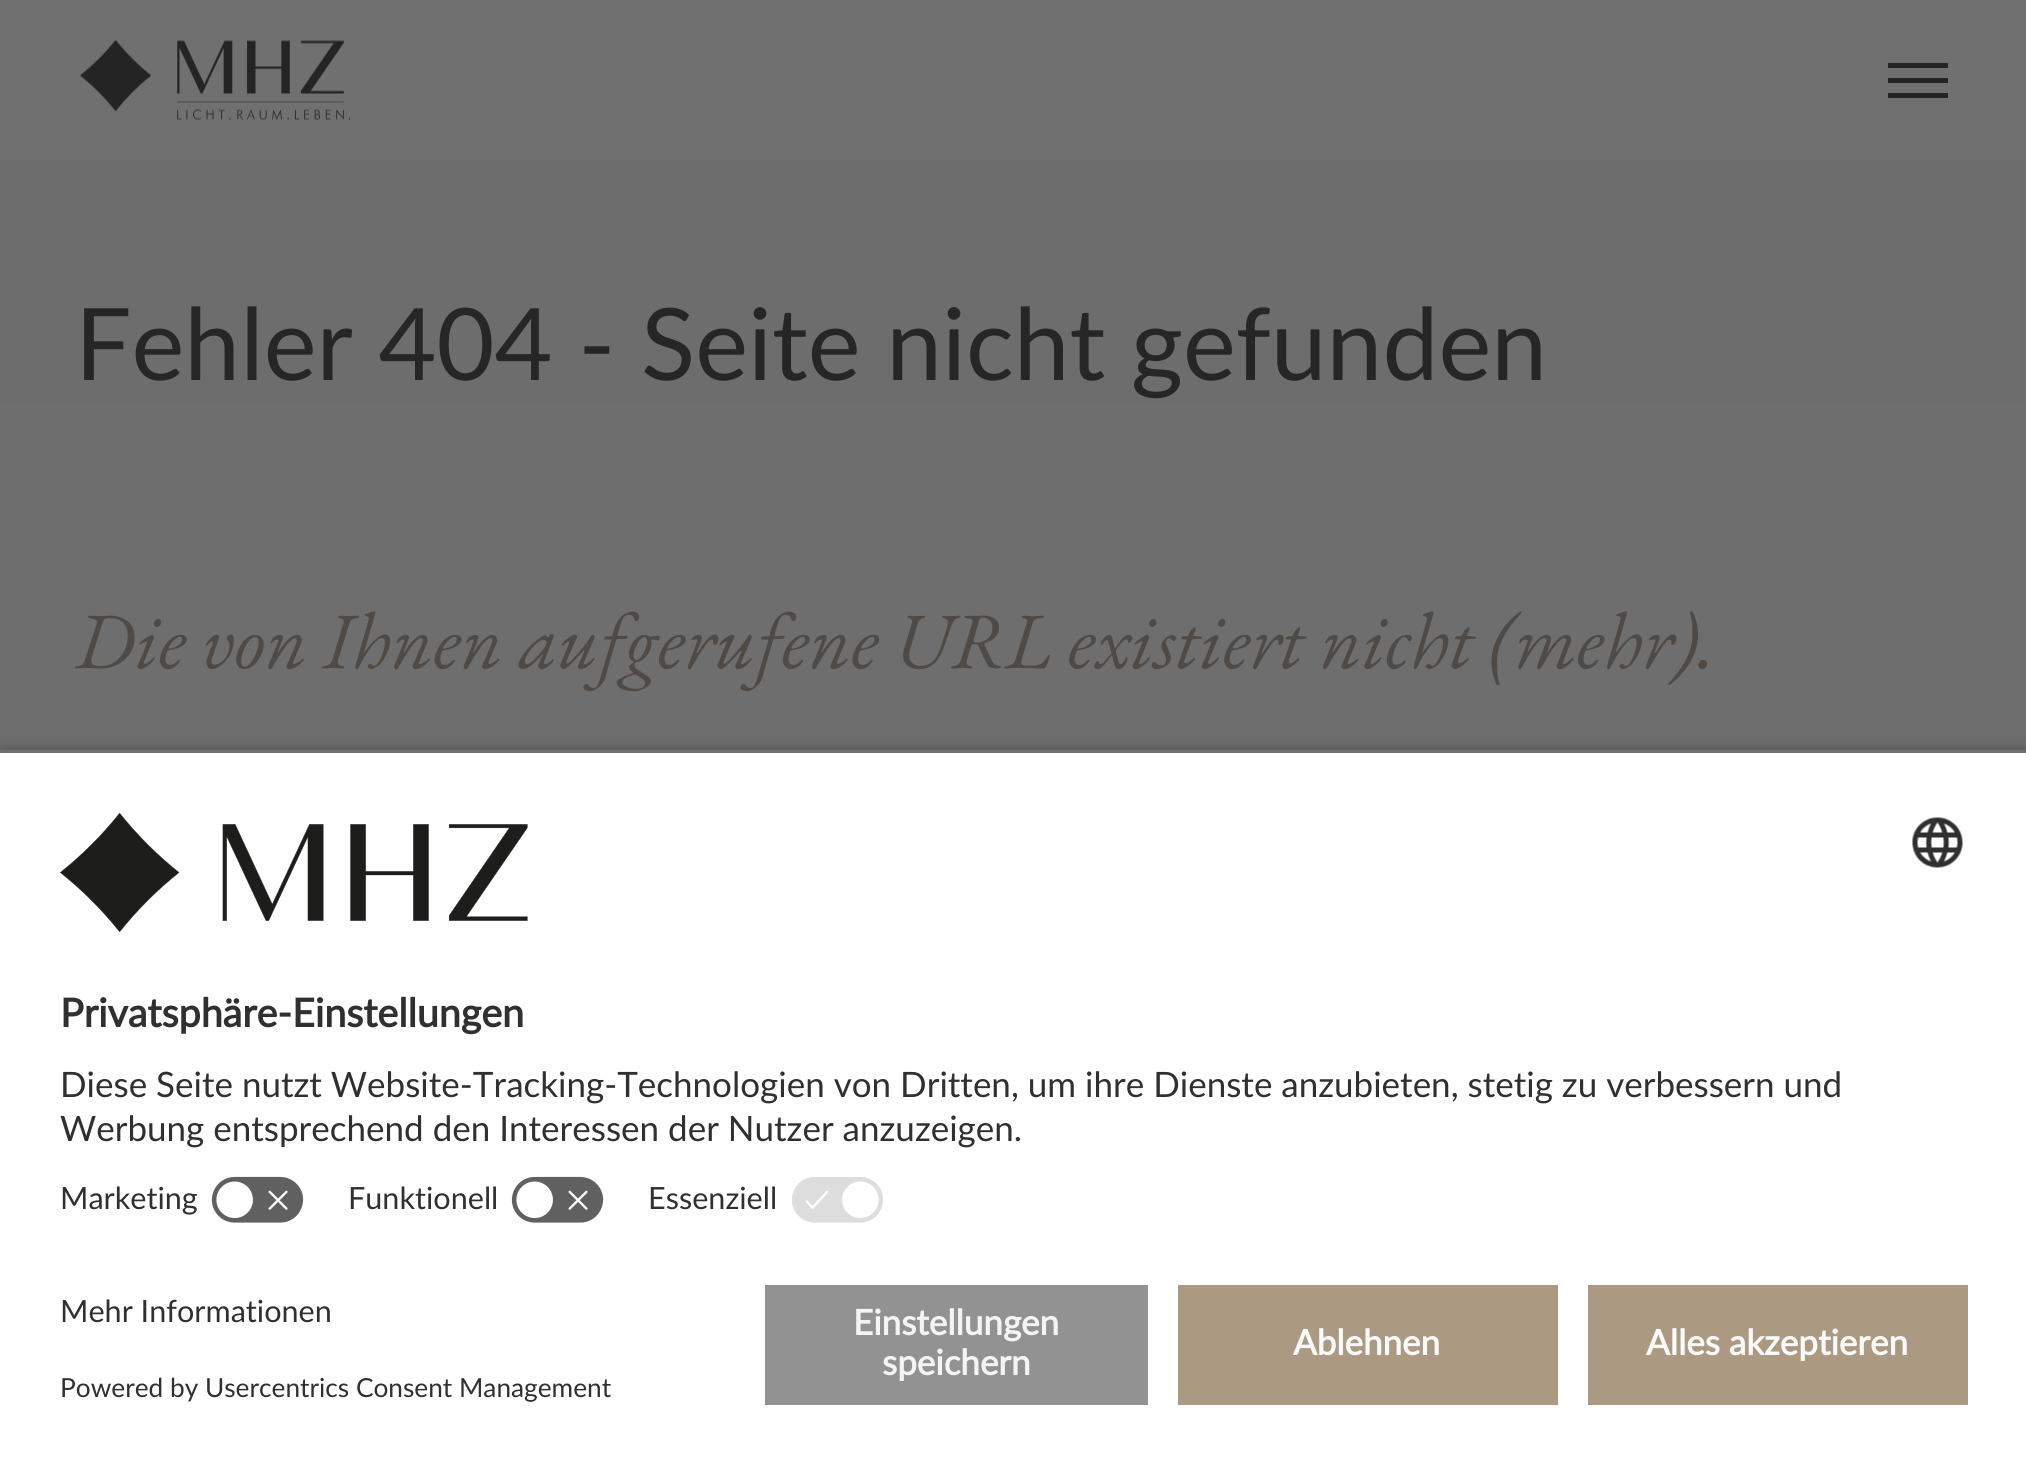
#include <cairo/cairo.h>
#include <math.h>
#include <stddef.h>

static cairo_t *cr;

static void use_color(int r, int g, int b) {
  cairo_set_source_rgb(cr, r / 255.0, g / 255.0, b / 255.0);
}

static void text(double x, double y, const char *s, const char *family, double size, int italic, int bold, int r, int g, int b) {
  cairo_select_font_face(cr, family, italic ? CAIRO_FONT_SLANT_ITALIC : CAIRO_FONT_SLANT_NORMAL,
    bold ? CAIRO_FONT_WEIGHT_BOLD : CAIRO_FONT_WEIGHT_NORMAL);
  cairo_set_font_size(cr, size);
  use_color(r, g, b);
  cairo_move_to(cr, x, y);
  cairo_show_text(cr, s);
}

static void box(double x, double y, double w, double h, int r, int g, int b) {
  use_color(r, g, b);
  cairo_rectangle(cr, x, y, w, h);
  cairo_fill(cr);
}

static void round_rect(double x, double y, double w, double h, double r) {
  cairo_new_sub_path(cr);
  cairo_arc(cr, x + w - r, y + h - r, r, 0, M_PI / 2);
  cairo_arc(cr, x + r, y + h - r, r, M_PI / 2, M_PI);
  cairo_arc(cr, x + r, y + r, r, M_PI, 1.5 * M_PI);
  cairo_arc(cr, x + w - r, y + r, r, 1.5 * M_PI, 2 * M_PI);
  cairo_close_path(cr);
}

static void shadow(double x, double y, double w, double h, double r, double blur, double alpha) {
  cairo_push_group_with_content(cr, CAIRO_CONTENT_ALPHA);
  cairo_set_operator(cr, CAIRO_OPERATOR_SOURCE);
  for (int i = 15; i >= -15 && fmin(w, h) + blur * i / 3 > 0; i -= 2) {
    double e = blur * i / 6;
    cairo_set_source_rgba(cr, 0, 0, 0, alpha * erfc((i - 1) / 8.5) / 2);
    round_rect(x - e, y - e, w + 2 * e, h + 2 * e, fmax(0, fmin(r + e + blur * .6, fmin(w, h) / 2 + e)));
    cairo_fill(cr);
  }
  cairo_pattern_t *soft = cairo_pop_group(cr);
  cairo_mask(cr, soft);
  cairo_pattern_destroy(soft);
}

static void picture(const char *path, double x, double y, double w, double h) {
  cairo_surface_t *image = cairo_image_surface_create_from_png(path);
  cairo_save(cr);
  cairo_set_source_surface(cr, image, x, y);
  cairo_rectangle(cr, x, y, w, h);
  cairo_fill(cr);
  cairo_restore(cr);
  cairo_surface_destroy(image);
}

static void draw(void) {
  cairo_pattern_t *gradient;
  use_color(255, 255, 255);
  cairo_paint(cr);
  box(0, 0, 2026, 160, 112, 112, 112);
  picture("img_01.png", 80, 40, 270, 80);
  box(1888, 78, 60, 5, 36, 36, 36);
  box(1888, 63, 60, 5, 36, 36, 36);
  box(1888, 93, 60, 5, 36, 36, 36);
  gradient = cairo_pattern_create_linear(1014, 0, 1014, 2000);
  cairo_pattern_add_color_stop_rgba(gradient, 0, 0.427, 0.427, 0.427, 1);
  cairo_pattern_add_color_stop_rgba(gradient, 1, 0.439, 0.439, 0.439, 1);
  cairo_set_source(cr, gradient);
  cairo_pattern_destroy(gradient);
  cairo_rectangle(cr, 0, 160, 2026, 593);
  cairo_fill(cr);
  cairo_save(cr);
  cairo_rectangle(cr, 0, 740, 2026, 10);
  cairo_clip(cr);
  use_color(0, 0, 0);
  shadow(0, 758, 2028, 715, 0, 9, 0.8);
  cairo_restore(cr);
  picture("img_02.png", 60, 813, 468, 119);
  picture("img_03.png", 1912, 817, 51, 51);
  picture("img_04.png", 211, 1176, 93, 47);
  picture("img_04.png", 511, 1176, 93, 47);
  picture("img_05.png", 792, 1177, 91, 46);
  box(765, 1285, 383, 120, 146, 146, 146);
  box(1178, 1285, 380, 120, 171, 153, 130);
  box(1588, 1285, 380, 120, 171, 153, 130);
  text(75, 380, "Fehler 404 - Seite nicht gefunden", "Lato", 100, 0, 0, 38, 38, 38);
  text(75, 668, "Die von Ihnen aufgerufene URL existiert nicht (mehr).", "EB Garamond", 80, 1, 0, 79, 74, 69);
  text(60, 1027, "Privatsphäre-Einstellungen", "Lato", 39.4, 0, 1, 48, 48, 48);
  text(60, 1097, "Diese Seite nutzt Website-Tracking-Technologien von Dritten, um ihre Dienste anzubieten, stetig zu verbessern und", "Lato", 35, 0, 0, 48, 48, 48);
  text(60, 1141, "Werbung entsprechend den Interessen der Nutzer anzuzeigen.", "Lato", 35, 0, 0, 48, 48, 48);
  text(60, 1209, "Marketing", "Lato", 30.6, 0, 0, 48, 48, 48);
  text(348, 1209, "Funktionell", "Lato", 30.6, 0, 0, 48, 48, 48);
  text(648, 1209, "Essenziell", "Lato", 30.6, 0, 0, 48, 48, 48);
  text(60, 1322, "Mehr Informationen", "Lato", 30.6, 0, 0, 48, 48, 48);
  text(60, 1397, "Powered by Usercentrics Consent Management", "Lato", 26.25, 0, 0, 48, 48, 48);
  text(853, 1335, "Einstellungen", "Lato", 35, 0, 1, 244, 244, 244);
  text(882, 1375, "speichern", "Lato", 35, 0, 1, 244, 244, 244);
  text(1293, 1355, "Ablehnen", "Lato", 35, 0, 1, 250, 250, 250);
  text(1646, 1355, "Alles akzeptieren", "Lato", 35, 0, 1, 250, 250, 250);
}

int main(void) {
  cairo_surface_t *surface = cairo_image_surface_create(CAIRO_FORMAT_RGB24, 2026, 1464);
  cr = cairo_create(surface);
  cairo_font_options_t *options = cairo_font_options_create();
  cairo_font_options_set_hint_metrics(options, CAIRO_HINT_METRICS_OFF);
  cairo_font_options_set_hint_style(options, CAIRO_HINT_STYLE_NONE);
  cairo_set_font_options(cr, options);
  cairo_set_miter_limit(cr, 4);
  draw();
  cairo_surface_write_to_png(surface, "out.png");
  cairo_font_options_destroy(options);
  cairo_destroy(cr);
  cairo_surface_destroy(surface);
  return 0;
}
